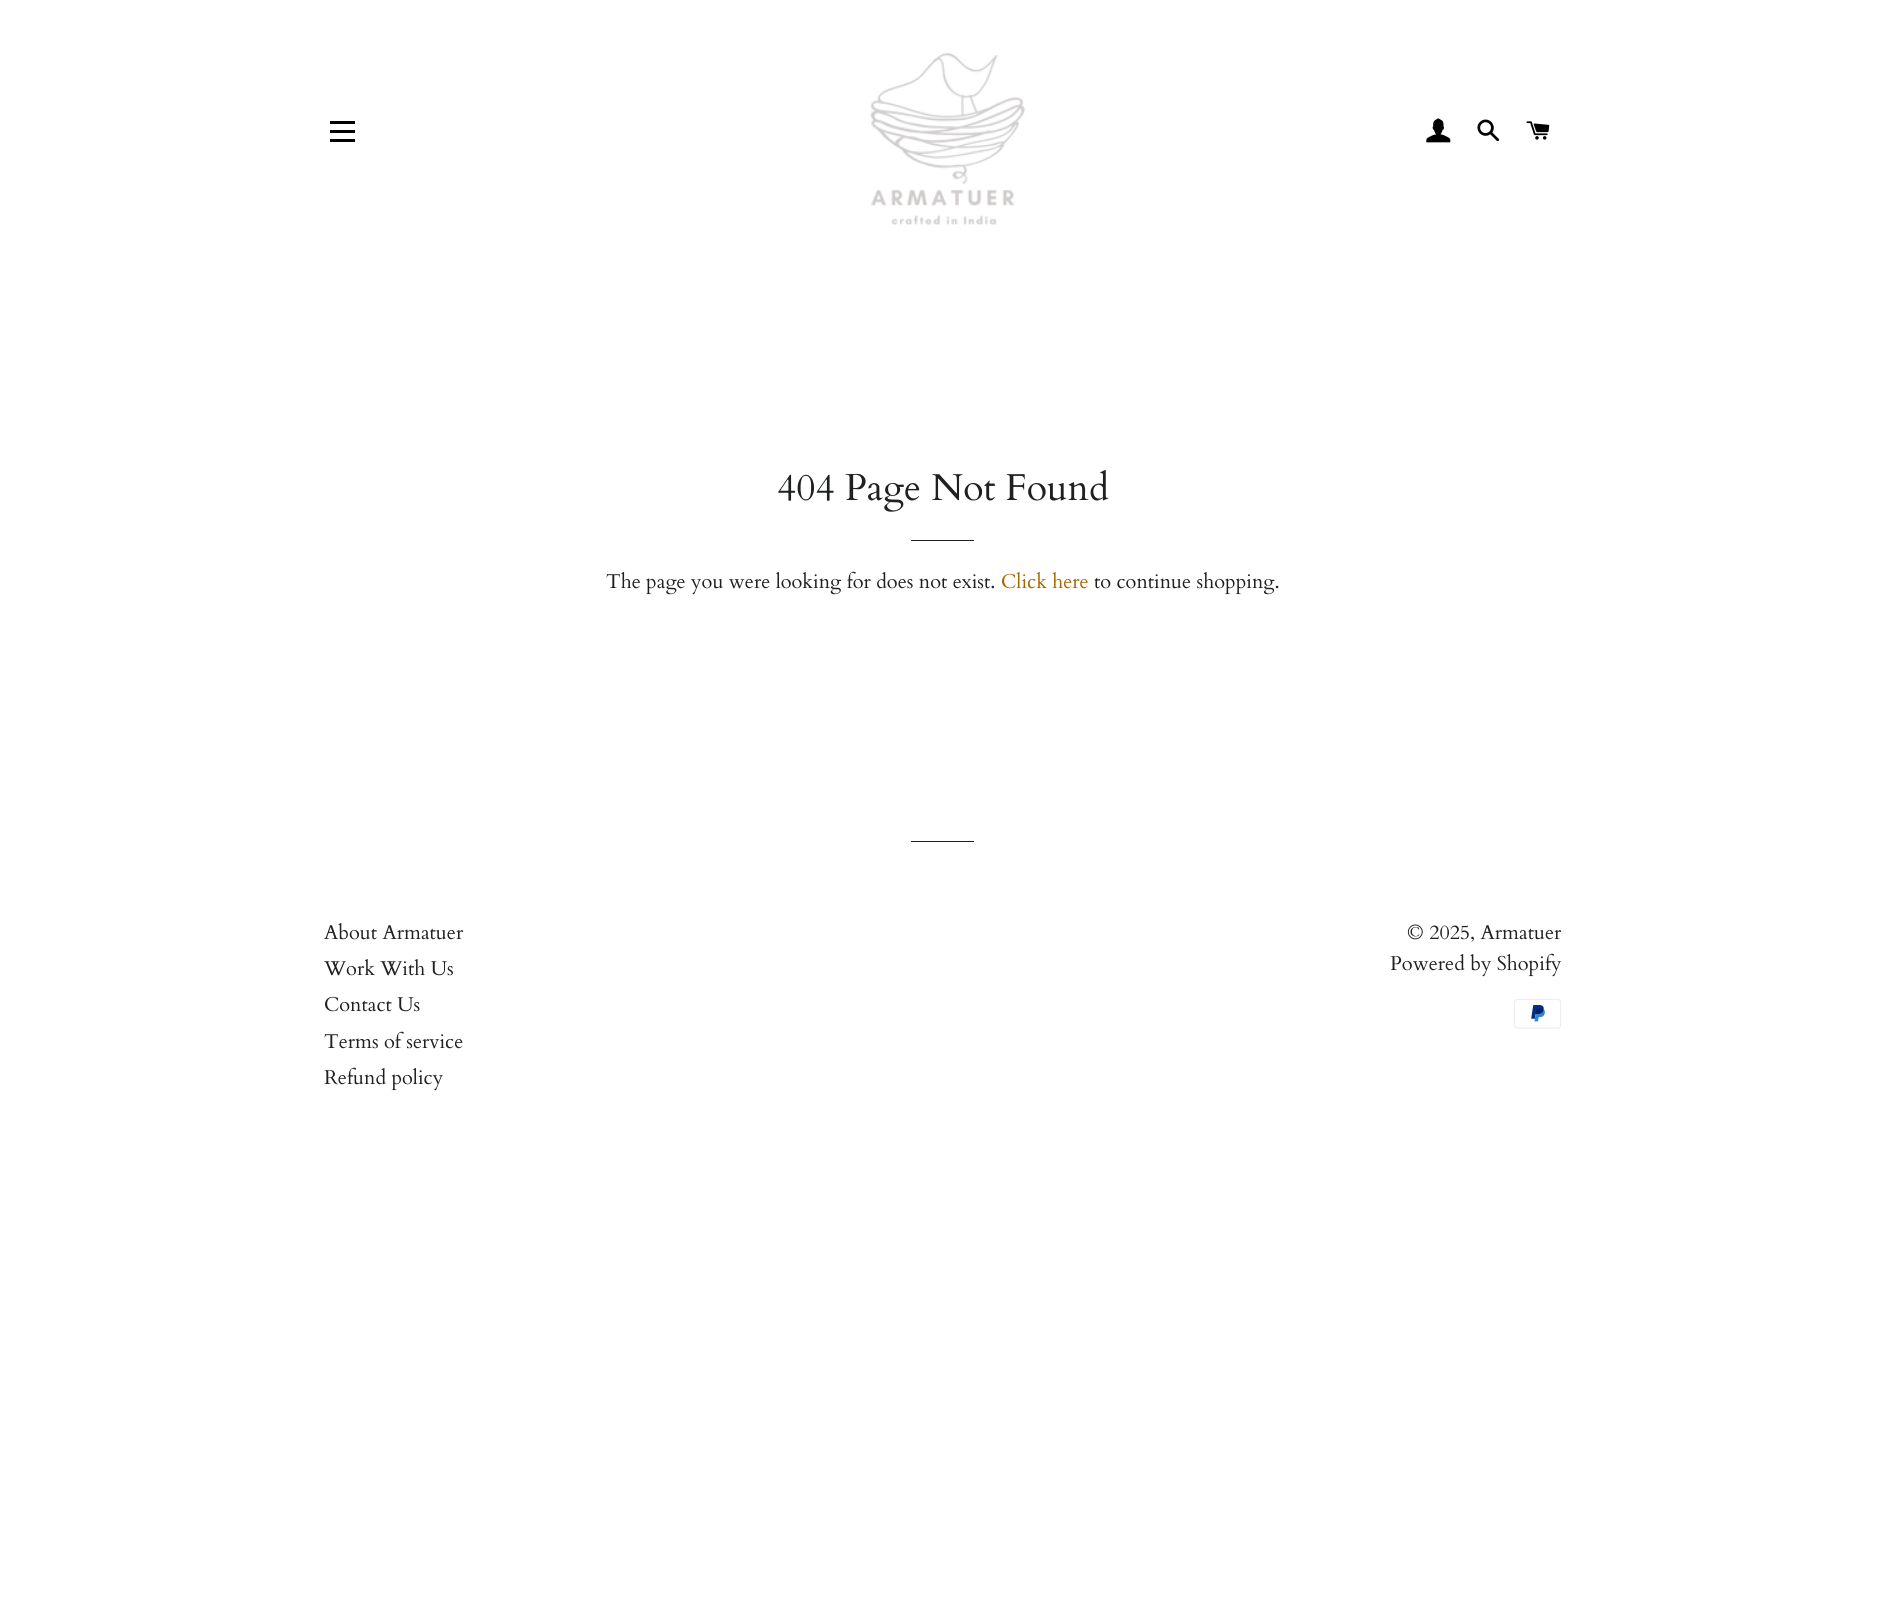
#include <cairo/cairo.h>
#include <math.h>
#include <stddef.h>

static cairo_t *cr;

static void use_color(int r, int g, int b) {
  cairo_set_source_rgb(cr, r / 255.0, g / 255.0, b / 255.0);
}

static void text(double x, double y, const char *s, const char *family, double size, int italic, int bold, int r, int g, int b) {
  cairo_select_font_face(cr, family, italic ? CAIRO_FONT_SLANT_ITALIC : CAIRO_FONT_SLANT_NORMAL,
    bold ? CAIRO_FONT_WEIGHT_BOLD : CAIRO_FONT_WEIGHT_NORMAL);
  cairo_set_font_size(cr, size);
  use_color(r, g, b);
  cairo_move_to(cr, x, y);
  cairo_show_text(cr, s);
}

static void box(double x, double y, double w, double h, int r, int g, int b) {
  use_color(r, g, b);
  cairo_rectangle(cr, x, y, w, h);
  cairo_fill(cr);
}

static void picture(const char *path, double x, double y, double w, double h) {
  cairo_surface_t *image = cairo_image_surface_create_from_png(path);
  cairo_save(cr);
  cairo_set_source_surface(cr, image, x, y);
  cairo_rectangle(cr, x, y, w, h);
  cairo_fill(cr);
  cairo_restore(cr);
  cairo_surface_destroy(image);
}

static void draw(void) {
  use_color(255, 255, 255);
  cairo_paint(cr);
  box(330, 121, 25, 3, 0, 0, 0);
  box(330, 130, 25, 3, 0, 0, 0);
  box(330, 139, 25, 3, 0, 0, 0);
  picture("img_01.png", 870, 52, 156, 173);
  picture("img_02.png", 1426, 118, 25, 25);
  picture("img_03.png", 1477, 119, 23, 23);
  picture("img_04.png", 1526, 121, 24, 19);
  box(911, 540, 63, 1, 31, 32, 33);
  box(911, 841, 63, 1, 31, 32, 33);
  picture("img_05.png", 1514, 999, 47, 30);
  text(777, 500, "404 Page Not Found", "Cardo", 37.5, 0, 0, 31, 32, 33);
  text(606, 588, "The page you were looking for does not exist.", "Cardo", 20, 0, 0, 31, 32, 33);
  text(1001, 588, "Click here", "Cardo", 20, 0, 0, 165, 102, 0);
  text(1094, 588, "to continue shopping.", "Cardo", 20, 0, 0, 31, 32, 33);
  text(324, 939, "About Armatuer", "Cardo", 20, 0, 0, 31, 32, 33);
  text(324, 975, "Work With Us", "Cardo", 20, 0, 0, 31, 32, 33);
  text(324, 1011, "Contact Us", "Cardo", 20, 0, 0, 31, 32, 33);
  text(324, 1048, "Terms of service", "Cardo", 20, 0, 0, 31, 32, 33);
  text(324, 1084, "Refund policy", "Cardo", 20, 0, 0, 31, 32, 33);
  text(1407, 939, "© 2025, Armatuer", "Cardo", 20, 0, 0, 31, 32, 33);
  text(1390, 970, "Powered by Shopify", "Cardo", 20, 0, 0, 31, 32, 33);
}

int main(void) {
  cairo_surface_t *surface = cairo_image_surface_create(CAIRO_FORMAT_RGB24, 1885, 1619);
  cr = cairo_create(surface);
  cairo_font_options_t *options = cairo_font_options_create();
  cairo_font_options_set_hint_metrics(options, CAIRO_HINT_METRICS_OFF);
  cairo_font_options_set_hint_style(options, CAIRO_HINT_STYLE_NONE);
  cairo_set_font_options(cr, options);
  cairo_set_miter_limit(cr, 4);
  draw();
  cairo_surface_write_to_png(surface, "out.png");
  cairo_font_options_destroy(options);
  cairo_destroy(cr);
  cairo_surface_destroy(surface);
  return 0;
}
